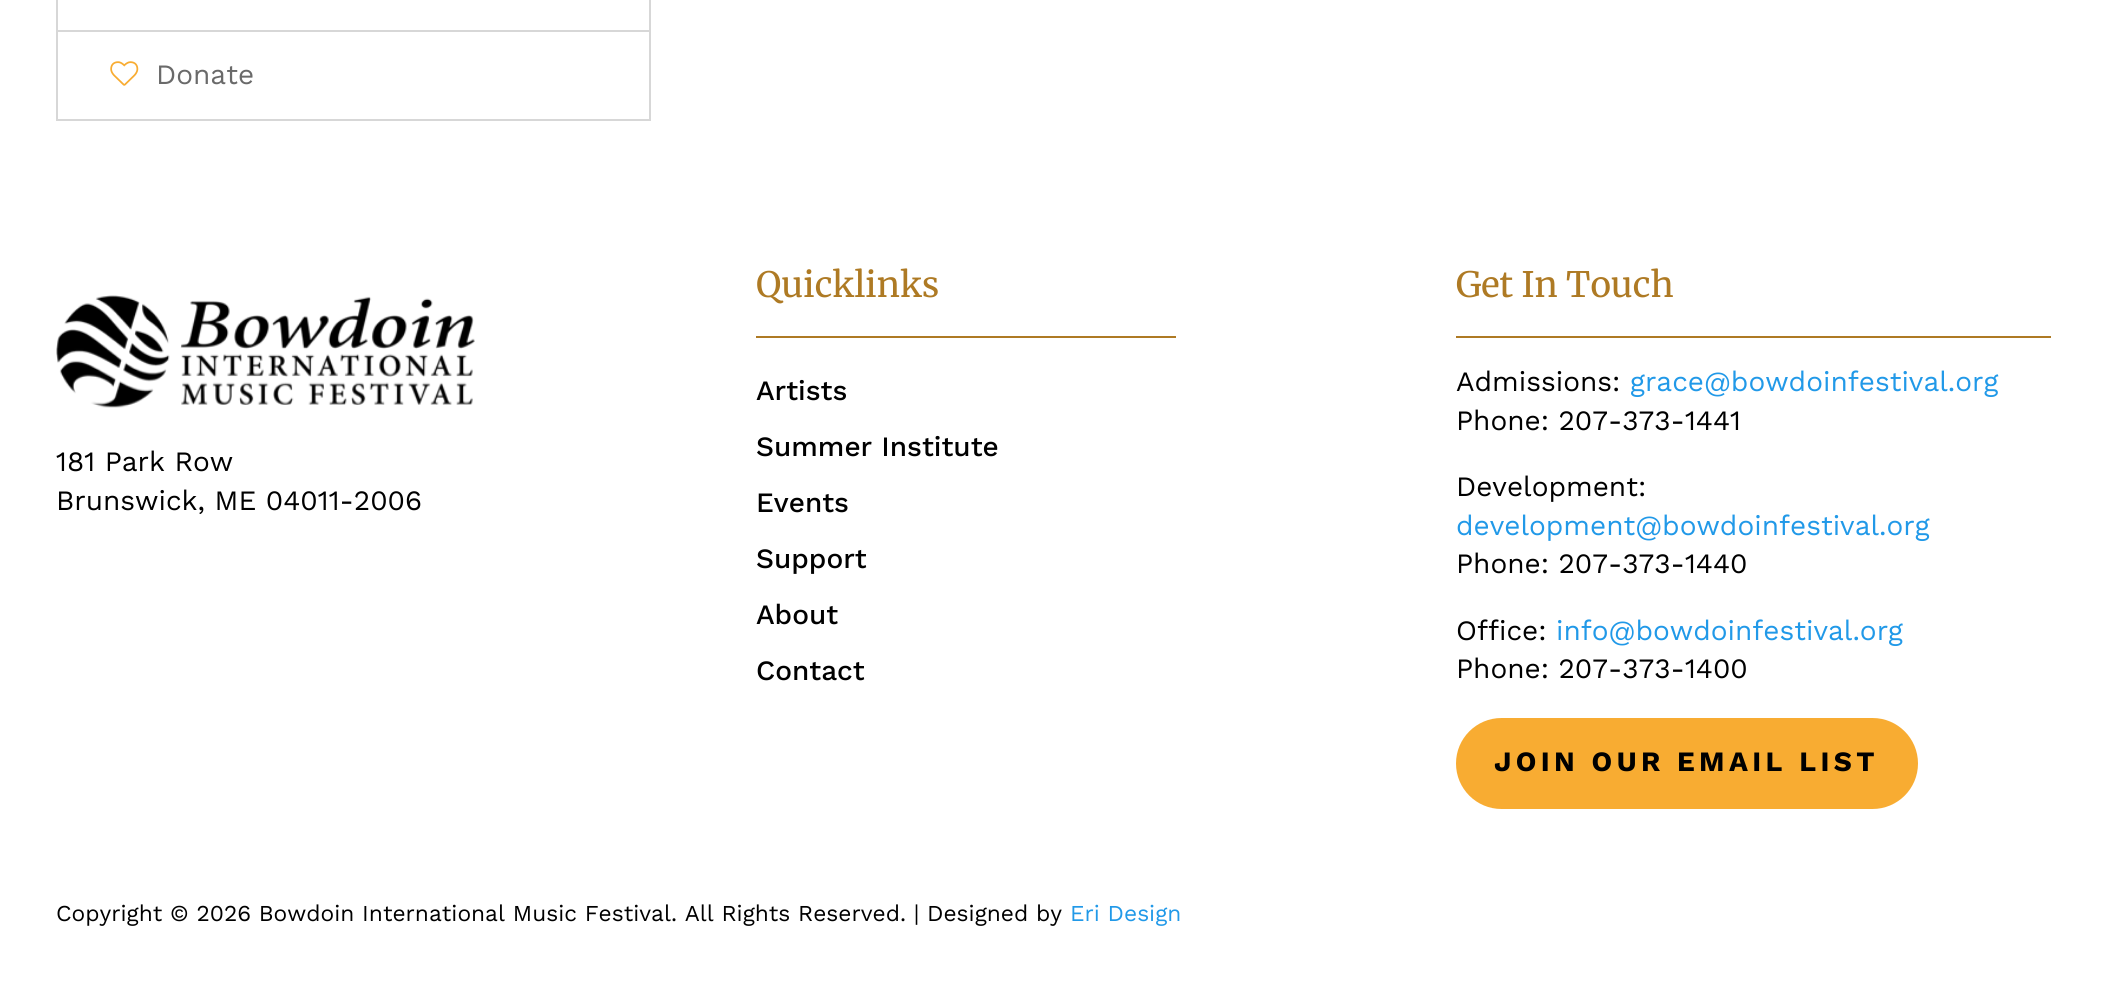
#include <cairo/cairo.h>
#include <math.h>
#include <stddef.h>

static cairo_t *cr;

static void use_color(int r, int g, int b) {
  cairo_set_source_rgb(cr, r / 255.0, g / 255.0, b / 255.0);
}

static void text(double x, double y, const char *s, const char *family, double size, int italic, int bold, int r, int g, int b) {
  cairo_select_font_face(cr, family, italic ? CAIRO_FONT_SLANT_ITALIC : CAIRO_FONT_SLANT_NORMAL,
    bold ? CAIRO_FONT_WEIGHT_BOLD : CAIRO_FONT_WEIGHT_NORMAL);
  cairo_set_font_size(cr, size);
  use_color(r, g, b);
  cairo_move_to(cr, x, y);
  cairo_show_text(cr, s);
}

static void spaced_text(double x, double y, const char *s, double letter, double word) {
  cairo_move_to(cr, x, y);
  while (*s) {
    char ch[5] = {0};
    int n = 0;
    do ch[n++] = *s++; while ((*s & 0xC0) == 0x80);
    cairo_show_text(cr, ch);
    cairo_rel_move_to(cr, letter + word * (*ch == ' '), 0);
  }
}

static void box(double x, double y, double w, double h, int r, int g, int b) {
  use_color(r, g, b);
  cairo_rectangle(cr, x, y, w, h);
  cairo_fill(cr);
}

static void round_rect(double x, double y, double w, double h, double r) {
  cairo_new_sub_path(cr);
  cairo_arc(cr, x + w - r, y + h - r, r, 0, M_PI / 2);
  cairo_arc(cr, x + r, y + h - r, r, M_PI / 2, M_PI);
  cairo_arc(cr, x + r, y + r, r, M_PI, 1.5 * M_PI);
  cairo_arc(cr, x + w - r, y + r, r, 1.5 * M_PI, 2 * M_PI);
  cairo_close_path(cr);
}

static void picture(const char *path, double x, double y, double w, double h) {
  cairo_surface_t *image = cairo_image_surface_create_from_png(path);
  cairo_save(cr);
  cairo_set_source_surface(cr, image, x, y);
  cairo_rectangle(cr, x, y, w, h);
  cairo_fill(cr);
  cairo_restore(cr);
  cairo_surface_destroy(image);
}

static void draw(void) {
  use_color(255, 255, 255);
  cairo_paint(cr);
  box(649, 0, 2, 121, 215, 215, 215);
  box(56, 30, 595, 2, 215, 215, 215);
  box(56, 0, 2, 32, 215, 215, 215);
  box(56, 119, 595, 2, 215, 215, 215);
  box(56, 32, 2, 89, 215, 215, 215);
  picture("img_01.png", 110, 61, 29, 25);
  picture("img_02.png", 56, 295, 419, 113);
  box(756, 336, 420, 2, 174, 122, 36);
  box(1456, 336, 595, 2, 174, 122, 36);
  use_color(248, 172, 50);
  round_rect(1456, 718, 462, 91, 45.5);
  cairo_fill(cr);
  text(156, 84, "Donate", "Work Sans", 28, 0, 0, 106, 106, 106);
  text(56, 471, "181 Park Row", "Work Sans", 28, 0, 0, 0, 0, 0);
  text(56, 510, "Brunswick, ME 04011-2006", "Work Sans", 28, 0, 0, 0, 0, 0);
  text(756, 297, "Quicklinks", "Merriweather Light", 35, 0, 0, 174, 122, 36);
  text(756, 400, "Artists", "Work Sans Medium", 28, 0, 0, 0, 0, 0);
  text(756, 456, "Summer Institute", "Work Sans Medium", 28, 0, 0, 0, 0, 0);
  text(756, 512, "Events", "Work Sans Medium", 28, 0, 0, 0, 0, 0);
  text(756, 568, "Support", "Work Sans Medium", 28, 0, 0, 0, 0, 0);
  text(756, 624, "About", "Work Sans Medium", 28, 0, 0, 0, 0, 0);
  text(756, 680, "Contact", "Work Sans Medium", 28, 0, 0, 0, 0, 0);
  text(1456, 297, "Get In Touch", "Merriweather Light", 35, 0, 0, 174, 122, 36);
  text(1456, 391, "Admissions:", "Work Sans", 28, 0, 0, 0, 0, 0);
  text(1630, 391, "grace@bowdoinfestival.org", "Work Sans", 28, 0, 0, 33, 153, 232);
  text(1456, 430, "Phone: 207-373-1441", "Work Sans", 28, 0, 0, 0, 0, 0);
  text(1456, 496, "Development:", "Work Sans", 28, 0, 0, 0, 0, 0);
  text(1456, 535, "development@bowdoinfestival.org", "Work Sans", 28, 0, 0, 33, 153, 232);
  text(1456, 573, "Phone: 207-373-1440", "Work Sans", 28, 0, 0, 0, 0, 0);
  text(1456, 640, "Office:", "Work Sans", 28, 0, 0, 0, 0, 0);
  text(1556, 640, "info@bowdoinfestival.org", "Work Sans", 28, 0, 0, 33, 153, 232);
  text(1456, 678, "Phone: 207-373-1400", "Work Sans", 28, 0, 0, 0, 0, 0);
  cairo_select_font_face(cr, "Work Sans", CAIRO_FONT_SLANT_NORMAL, CAIRO_FONT_WEIGHT_BOLD);
  spaced_text(1494, 771, "JOIN OUR EMAIL LIST", 4.4, 0);
  text(56, 921, "Copyright © 2026 Bowdoin International Music Festival. All Rights Reserved. | Designed by", "Work Sans", 22.75, 0, 0, 0, 0, 0);
  text(1070, 921, "Eri Design", "Work Sans", 22.75, 0, 0, 33, 153, 232);
}

int main(void) {
  cairo_surface_t *surface = cairo_image_surface_create(CAIRO_FORMAT_RGB24, 2107, 986);
  cr = cairo_create(surface);
  cairo_font_options_t *options = cairo_font_options_create();
  cairo_font_options_set_hint_metrics(options, CAIRO_HINT_METRICS_OFF);
  cairo_font_options_set_hint_style(options, CAIRO_HINT_STYLE_NONE);
  cairo_set_font_options(cr, options);
  cairo_set_miter_limit(cr, 4);
  draw();
  cairo_surface_write_to_png(surface, "out.png");
  cairo_font_options_destroy(options);
  cairo_destroy(cr);
  cairo_surface_destroy(surface);
  return 0;
}
